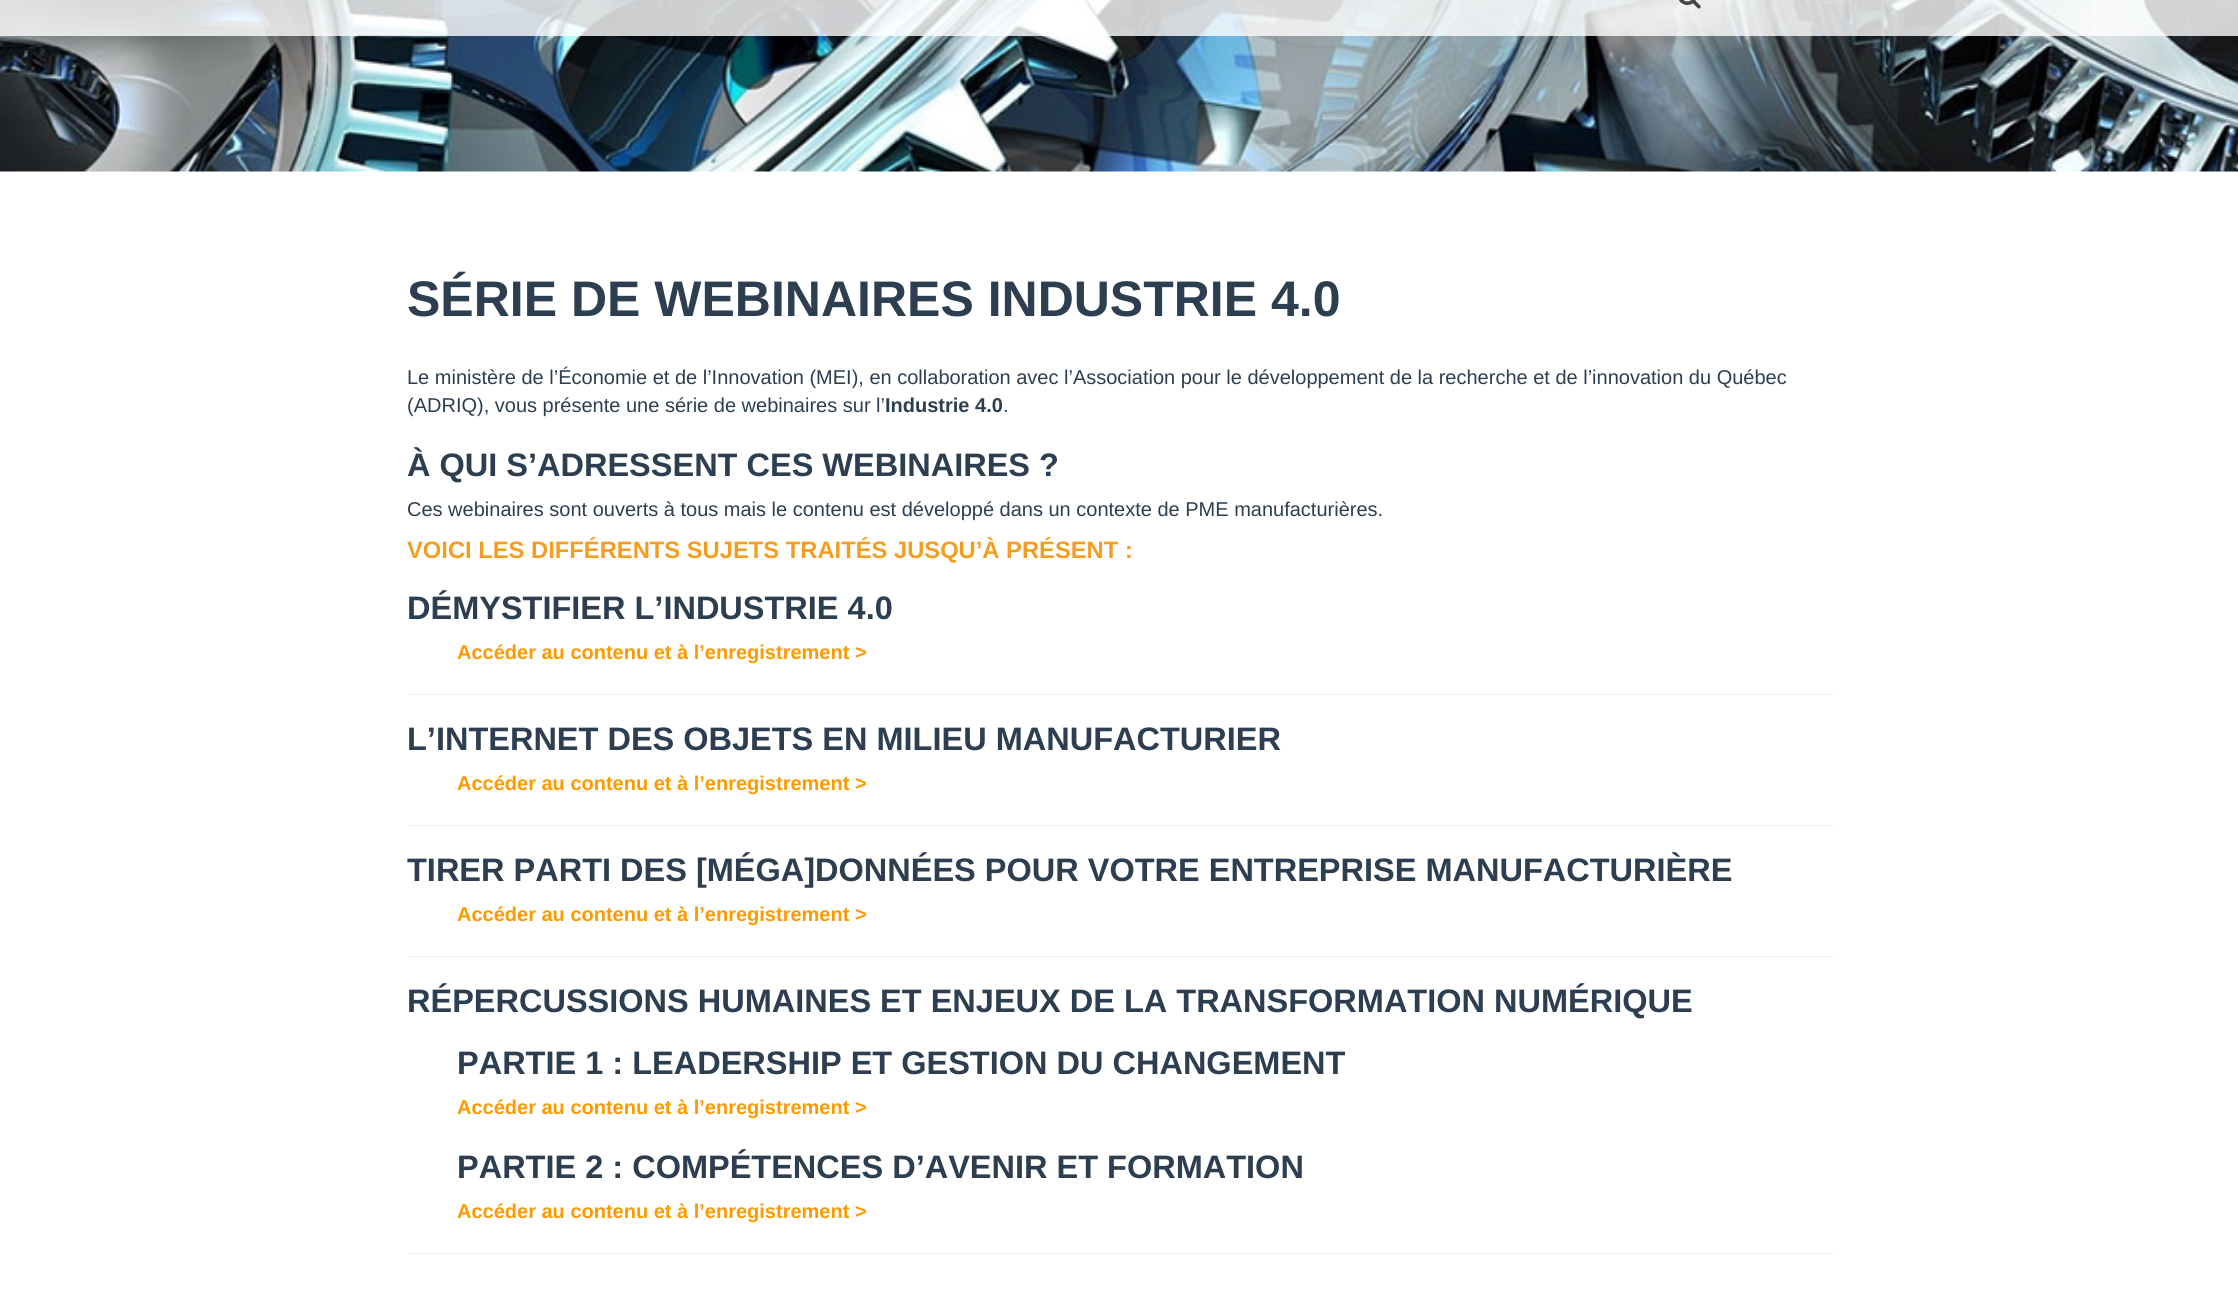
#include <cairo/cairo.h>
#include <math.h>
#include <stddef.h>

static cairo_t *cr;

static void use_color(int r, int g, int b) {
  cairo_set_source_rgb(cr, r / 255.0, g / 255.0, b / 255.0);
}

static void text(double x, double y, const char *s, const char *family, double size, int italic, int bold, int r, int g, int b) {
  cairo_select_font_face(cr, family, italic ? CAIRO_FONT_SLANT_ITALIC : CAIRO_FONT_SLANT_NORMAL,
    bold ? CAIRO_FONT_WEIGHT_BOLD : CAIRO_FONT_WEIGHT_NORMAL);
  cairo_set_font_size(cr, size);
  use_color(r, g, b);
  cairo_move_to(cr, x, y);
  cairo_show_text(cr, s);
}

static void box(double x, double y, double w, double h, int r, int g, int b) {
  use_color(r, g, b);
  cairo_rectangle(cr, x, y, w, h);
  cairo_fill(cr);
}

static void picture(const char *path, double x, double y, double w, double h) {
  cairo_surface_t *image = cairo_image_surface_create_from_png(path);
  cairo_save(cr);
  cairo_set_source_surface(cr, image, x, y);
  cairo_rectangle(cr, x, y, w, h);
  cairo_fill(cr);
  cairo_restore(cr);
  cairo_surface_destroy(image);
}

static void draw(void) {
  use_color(255, 255, 255);
  cairo_paint(cr);
  picture("img_01.png", 0, 0, 2238, 172);
  cairo_set_source_rgba(cr, 1, 1, 1, 0.8);
  cairo_rectangle(cr, 0, 0, 2238, 36);
  cairo_fill(cr);
  picture("img_02.png", 1678, 0, 23, 9);
  box(408, 694, 1425, 1, 236, 240, 241);
  box(408, 825, 1425, 1, 236, 240, 241);
  box(408, 956, 1425, 1, 236, 240, 241);
  box(408, 1253, 1425, 1, 236, 240, 241);
  text(407, 316, "SÉRIE DE WEBINAIRES INDUSTRIE 4.0", "Liberation Sans", 50, 0, 1, 44, 62, 80);
  text(407, 384, "Le ministère de l’Économie et de l’Innovation (MEI), en collaboration avec l’Association pour le développement de la recherche et de l’innovation du Québec", "Liberation Sans", 20, 0, 0, 44, 62, 80);
  text(407, 412, "(ADRIQ), vous présente une série de webinaires sur l’", "Liberation Sans", 20, 0, 0, 44, 62, 80);
  text(885, 412, "Industrie 4.0", "Liberation Sans", 20, 0, 1, 44, 62, 80);
  text(1003, 412, ".", "Liberation Sans", 20, 0, 0, 44, 62, 80);
  text(407, 476, "À QUI S’ADRESSENT CES WEBINAIRES ?", "Liberation Sans", 32.5, 0, 1, 44, 62, 80);
  text(407, 516, "Ces webinaires sont ouverts à tous mais le contenu est développé dans un contexte de PME manufacturières.", "Liberation Sans", 20, 0, 0, 44, 62, 80);
  text(407, 558, "VOICI LES DIFFÉRENTS SUJETS TRAITÉS JUSQU’À PRÉSENT :", "Liberation Sans", 23.75, 0, 1, 245, 157, 33);
  text(407, 619, "DÉMYSTIFIER L’INDUSTRIE 4.0", "Liberation Sans", 32.5, 0, 1, 44, 62, 80);
  text(457, 659, "Accéder au contenu et à l’enregistrement >", "Liberation Sans", 20, 0, 1, 255, 153, 0);
  text(407, 750, "L’INTERNET DES OBJETS EN MILIEU MANUFACTURIER", "Liberation Sans", 32.5, 0, 1, 44, 62, 80);
  text(457, 790, "Accéder au contenu et à l’enregistrement >", "Liberation Sans", 20, 0, 1, 255, 153, 0);
  text(407, 881, "TIRER PARTI DES [MÉGA]DONNÉES POUR VOTRE ENTREPRISE MANUFACTURIÈRE", "Liberation Sans", 32.5, 0, 1, 44, 62, 80);
  text(457, 921, "Accéder au contenu et à l’enregistrement >", "Liberation Sans", 20, 0, 1, 255, 153, 0);
  text(407, 1012, "RÉPERCUSSIONS HUMAINES ET ENJEUX DE LA TRANSFORMATION NUMÉRIQUE", "Liberation Sans", 32.5, 0, 1, 44, 62, 80);
  text(457, 1074, "PARTIE 1 : LEADERSHIP ET GESTION DU CHANGEMENT", "Liberation Sans", 32.5, 0, 1, 44, 62, 80);
  text(457, 1114, "Accéder au contenu et à l’enregistrement >", "Liberation Sans", 20, 0, 1, 255, 153, 0);
  text(457, 1178, "PARTIE 2 : COMPÉTENCES D’AVENIR ET FORMATION", "Liberation Sans", 32.5, 0, 1, 44, 62, 80);
  text(457, 1218, "Accéder au contenu et à l’enregistrement >", "Liberation Sans", 20, 0, 1, 255, 153, 0);
}

int main(void) {
  cairo_surface_t *surface = cairo_image_surface_create(CAIRO_FORMAT_RGB24, 2238, 1291);
  cr = cairo_create(surface);
  cairo_font_options_t *options = cairo_font_options_create();
  cairo_font_options_set_hint_metrics(options, CAIRO_HINT_METRICS_OFF);
  cairo_font_options_set_hint_style(options, CAIRO_HINT_STYLE_NONE);
  cairo_set_font_options(cr, options);
  cairo_set_miter_limit(cr, 4);
  draw();
  cairo_surface_write_to_png(surface, "out.png");
  cairo_font_options_destroy(options);
  cairo_destroy(cr);
  cairo_surface_destroy(surface);
  return 0;
}
